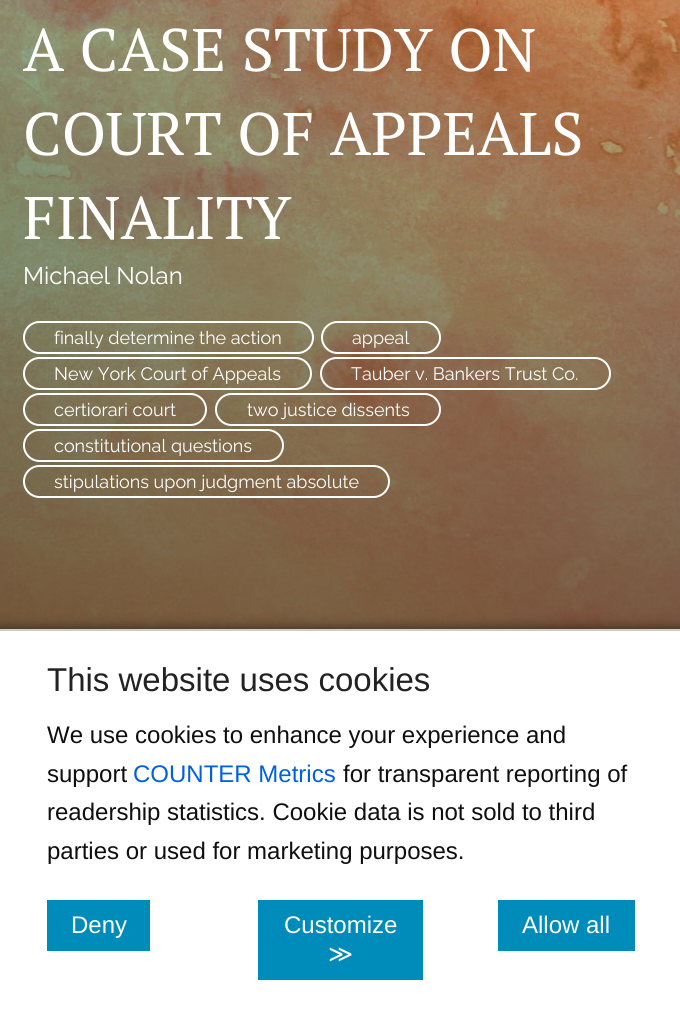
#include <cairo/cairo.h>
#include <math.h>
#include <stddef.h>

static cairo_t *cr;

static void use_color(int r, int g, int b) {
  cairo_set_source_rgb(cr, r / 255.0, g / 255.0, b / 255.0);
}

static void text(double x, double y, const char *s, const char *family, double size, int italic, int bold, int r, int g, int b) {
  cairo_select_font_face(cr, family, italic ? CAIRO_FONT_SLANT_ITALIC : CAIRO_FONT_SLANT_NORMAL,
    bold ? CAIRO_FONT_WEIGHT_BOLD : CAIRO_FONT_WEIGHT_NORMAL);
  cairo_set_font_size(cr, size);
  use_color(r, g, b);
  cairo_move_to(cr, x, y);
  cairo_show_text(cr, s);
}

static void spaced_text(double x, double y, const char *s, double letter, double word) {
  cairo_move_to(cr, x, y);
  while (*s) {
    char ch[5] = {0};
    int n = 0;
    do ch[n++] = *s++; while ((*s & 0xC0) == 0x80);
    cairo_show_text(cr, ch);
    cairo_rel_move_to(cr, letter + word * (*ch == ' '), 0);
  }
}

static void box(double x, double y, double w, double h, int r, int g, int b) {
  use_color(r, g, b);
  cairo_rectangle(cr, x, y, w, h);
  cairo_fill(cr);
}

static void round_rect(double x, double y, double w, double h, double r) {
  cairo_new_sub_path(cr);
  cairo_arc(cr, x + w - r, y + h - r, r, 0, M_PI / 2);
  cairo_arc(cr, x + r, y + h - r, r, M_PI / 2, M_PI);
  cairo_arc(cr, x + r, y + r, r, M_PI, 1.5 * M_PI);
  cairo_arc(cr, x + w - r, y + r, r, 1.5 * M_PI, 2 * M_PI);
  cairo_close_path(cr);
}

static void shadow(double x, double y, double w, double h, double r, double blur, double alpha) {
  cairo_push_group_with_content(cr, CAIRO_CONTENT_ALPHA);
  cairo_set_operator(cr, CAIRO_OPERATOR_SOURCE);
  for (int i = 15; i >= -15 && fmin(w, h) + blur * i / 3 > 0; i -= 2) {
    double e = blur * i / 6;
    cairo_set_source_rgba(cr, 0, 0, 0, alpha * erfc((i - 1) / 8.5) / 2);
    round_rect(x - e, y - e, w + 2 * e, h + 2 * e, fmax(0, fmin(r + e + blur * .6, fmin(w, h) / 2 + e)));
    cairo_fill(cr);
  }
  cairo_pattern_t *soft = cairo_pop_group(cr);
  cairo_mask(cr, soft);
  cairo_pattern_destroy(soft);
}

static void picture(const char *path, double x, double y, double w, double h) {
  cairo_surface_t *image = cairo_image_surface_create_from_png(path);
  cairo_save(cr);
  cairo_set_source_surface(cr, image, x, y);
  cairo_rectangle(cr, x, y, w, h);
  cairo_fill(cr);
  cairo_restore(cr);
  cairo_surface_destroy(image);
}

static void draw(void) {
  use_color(255, 255, 255);
  cairo_paint(cr);
  picture("img_01.png", 0, 0, 680, 629);
  round_rect(24, 322, 289, 31, 15.5);
  use_color(255, 255, 255);
  cairo_stroke(cr);
  round_rect(322, 322, 118, 31, 15.5);
  cairo_stroke(cr);
  round_rect(24, 358, 287, 31, 15.5);
  cairo_stroke(cr);
  round_rect(321, 358, 289, 31, 15.5);
  cairo_stroke(cr);
  round_rect(24, 394, 182, 31, 15.5);
  cairo_stroke(cr);
  round_rect(216, 394, 224, 31, 15.5);
  cairo_stroke(cr);
  round_rect(24, 430, 259, 31, 15.5);
  cairo_stroke(cr);
  round_rect(24, 466, 365, 31, 15.5);
  cairo_stroke(cr);
  use_color(0, 0, 0);
  shadow(-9, 633, 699, 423, 0, 8, 1);
  box(0, 631, 680, 402, 255, 255, 255);
  box(0, 629, 680, 2, 204, 204, 204);
  box(47, 900, 103, 51, 0, 140, 186);
  box(258, 900, 165, 80, 0, 140, 186);
  box(498, 900, 137, 51, 0, 140, 186);
  cairo_select_font_face(cr, "PT Serif", CAIRO_FONT_SLANT_NORMAL, CAIRO_FONT_WEIGHT_NORMAL);
  cairo_set_font_size(cr, 60);
  use_color(255, 255, 255);
  spaced_text(23, 71, "A CASE STUDY ON", 0, 1);
  spaced_text(23, 155, "COURT OF APPEALS", 0, 1);
  text(23, 239, "FINALITY", "PT Serif", 60, 0, 0, 255, 255, 255);
  text(23, 284, "Michael Nolan", "Raleway", 24, 0, 0, 255, 255, 255);
  text(54, 344, "finally determine the action", "Raleway", 18, 0, 0, 255, 255, 255);
  text(352, 344, "appeal", "Raleway", 18, 0, 0, 255, 255, 255);
  text(54, 380, "New York Court of Appeals", "Raleway", 18, 0, 0, 255, 255, 255);
  text(351, 380, "Tauber v. Bankers Trust Co.", "Raleway", 18, 0, 0, 255, 255, 255);
  text(54, 416, "certiorari court", "Raleway", 18, 0, 0, 255, 255, 255);
  text(247, 416, "two justice dissents", "Raleway", 18, 0, 0, 255, 255, 255);
  text(54, 452, "constitutional questions", "Raleway", 18, 0, 0, 255, 255, 255);
  text(54, 488, "stipulations upon judgment absolute", "Raleway", 18, 0, 0, 255, 255, 255);
  text(47, 691, "This website uses cookies", "Liberation Sans", 33, 0, 0, 34, 34, 34);
  text(47, 743, "We use cookies to enhance your experience and", "Liberation Sans", 24, 0, 0, 15, 15, 15);
  text(47, 782, "support", "Liberation Sans", 24, 0, 0, 15, 15, 15);
  text(133, 782, "COUNTER Metrics", "Liberation Sans", 24, 0, 0, 0, 97, 224);
  text(343, 782, "for transparent reporting of", "Liberation Sans", 24, 0, 0, 15, 15, 15);
  text(47, 820, "readership statistics. Cookie data is not sold to third", "Liberation Sans", 24, 0, 0, 15, 15, 15);
  text(47, 859, "parties or used for marketing purposes.", "Liberation Sans", 24, 0, 0, 15, 15, 15);
  text(71, 933, "Deny", "Liberation Sans", 24, 0, 0, 255, 255, 255);
  text(284, 933, "Customize", "Liberation Sans", 24, 0, 0, 255, 255, 255);
  text(328, 962, "≫", "DejaVu Sans", 24, 0, 0, 255, 255, 255);
  text(522, 933, "Allow all", "Liberation Sans", 24, 0, 0, 255, 255, 255);
}

int main(void) {
  cairo_surface_t *surface = cairo_image_surface_create(CAIRO_FORMAT_RGB24, 680, 1033);
  cr = cairo_create(surface);
  cairo_font_options_t *options = cairo_font_options_create();
  cairo_font_options_set_hint_metrics(options, CAIRO_HINT_METRICS_OFF);
  cairo_font_options_set_hint_style(options, CAIRO_HINT_STYLE_NONE);
  cairo_set_font_options(cr, options);
  cairo_set_miter_limit(cr, 4);
  draw();
  cairo_surface_write_to_png(surface, "out.png");
  cairo_font_options_destroy(options);
  cairo_destroy(cr);
  cairo_surface_destroy(surface);
  return 0;
}
